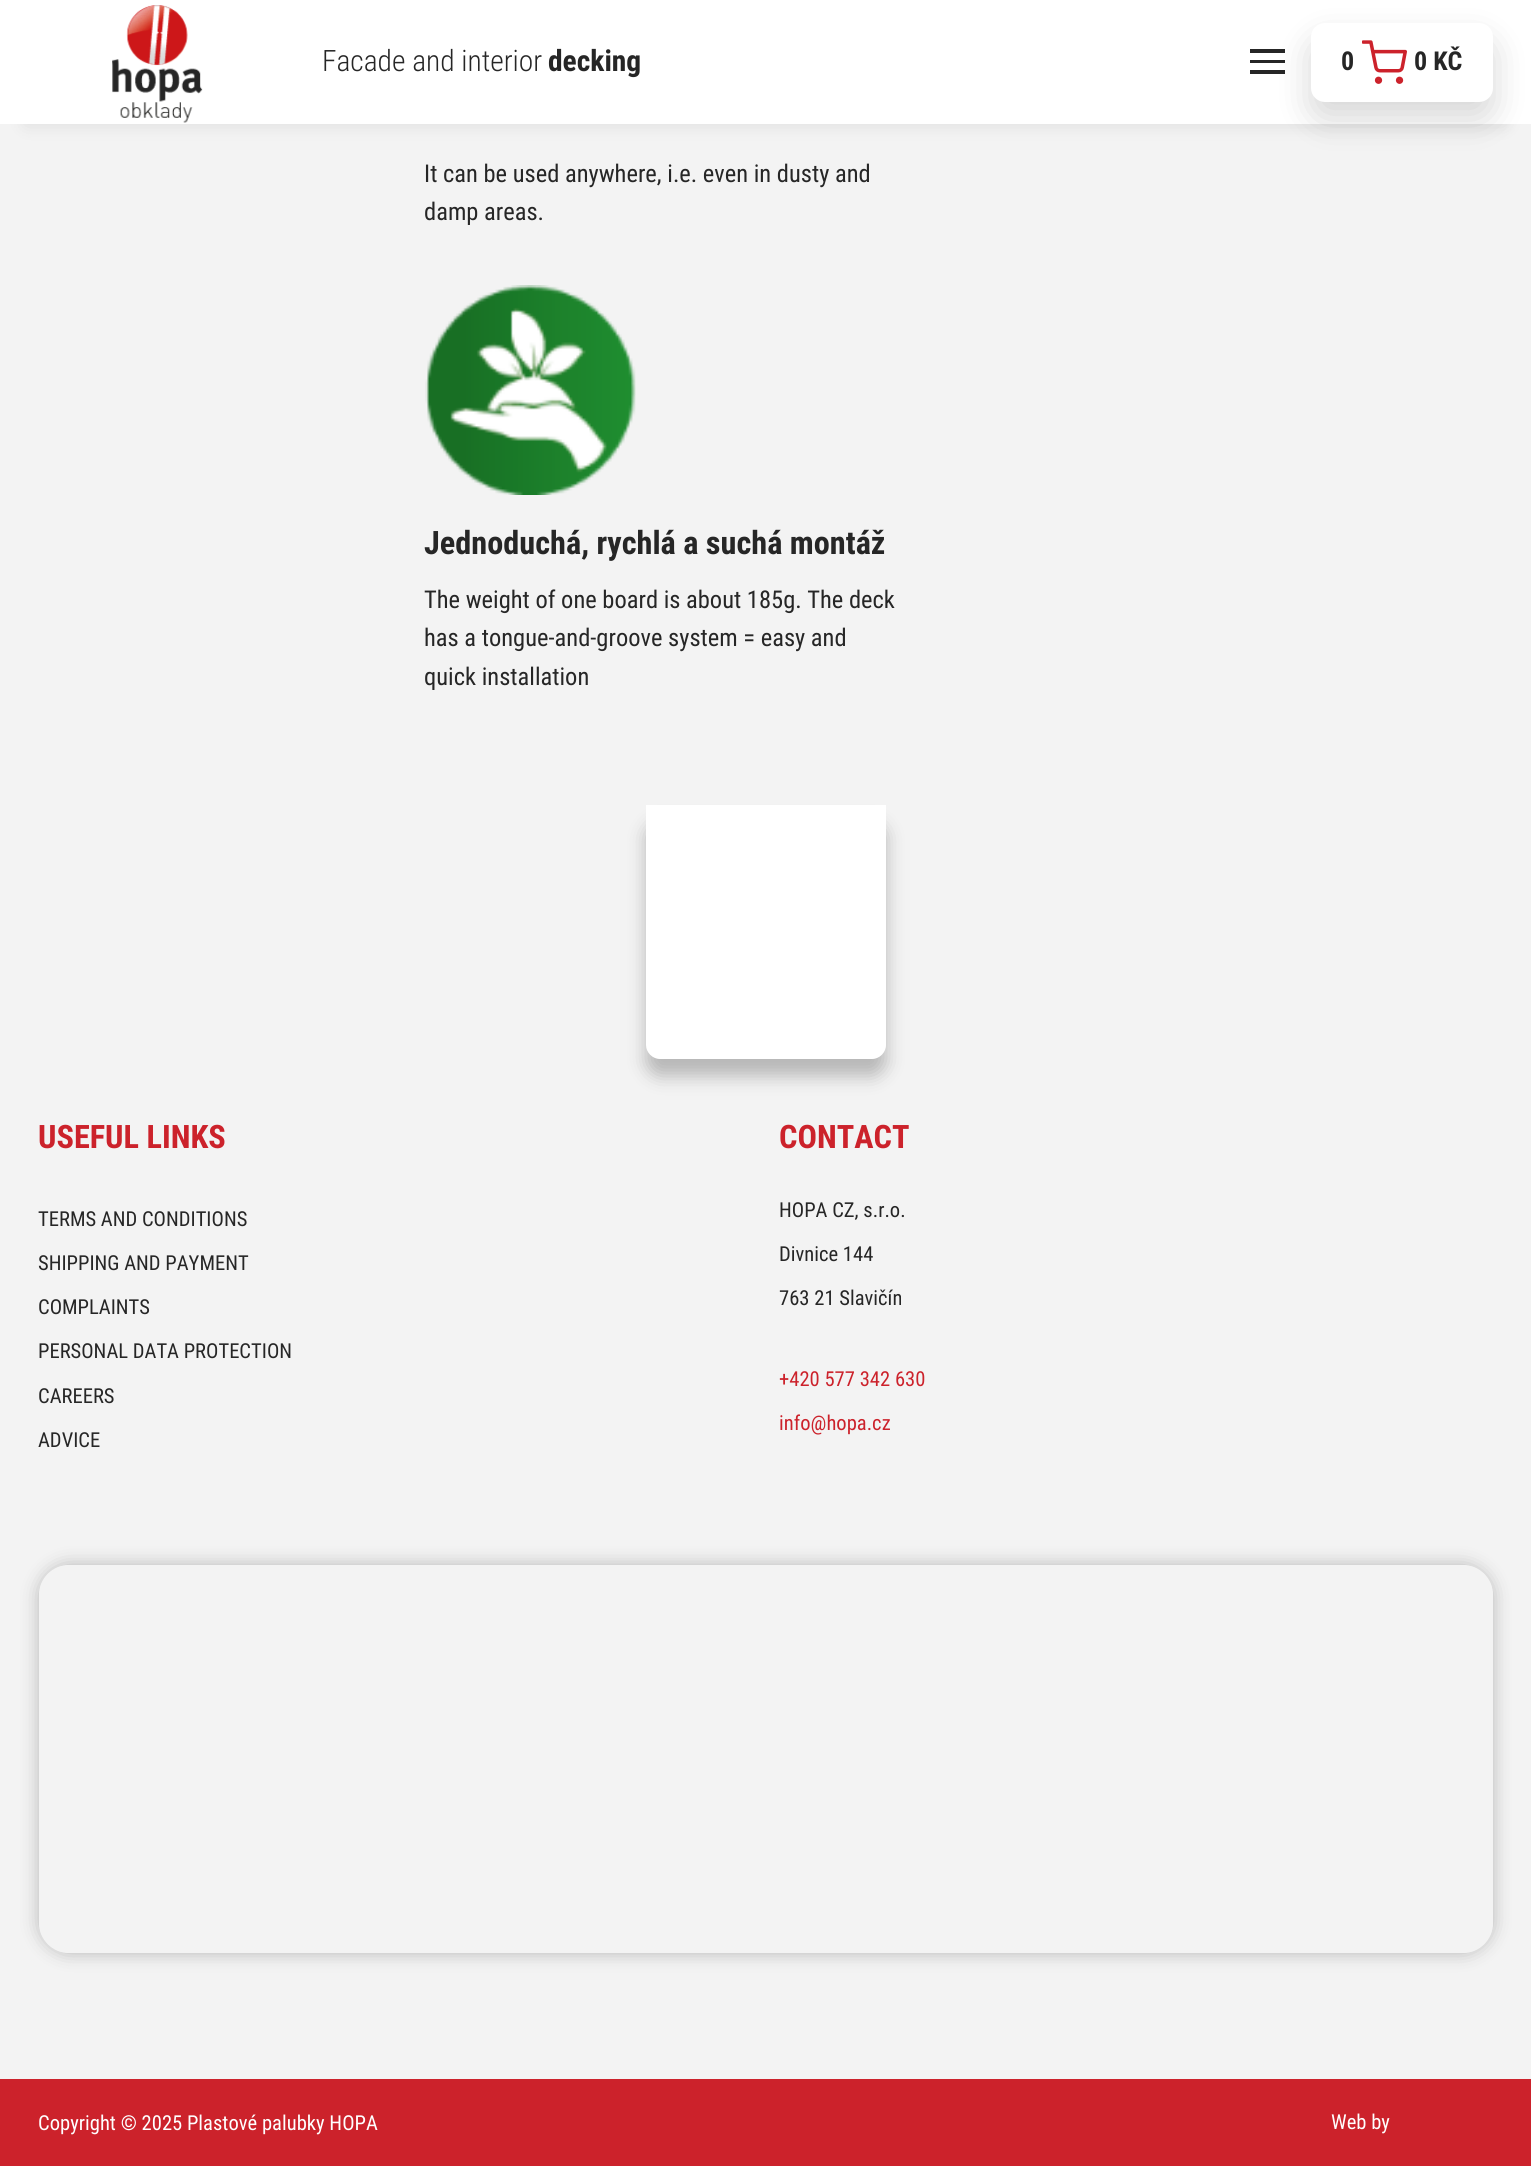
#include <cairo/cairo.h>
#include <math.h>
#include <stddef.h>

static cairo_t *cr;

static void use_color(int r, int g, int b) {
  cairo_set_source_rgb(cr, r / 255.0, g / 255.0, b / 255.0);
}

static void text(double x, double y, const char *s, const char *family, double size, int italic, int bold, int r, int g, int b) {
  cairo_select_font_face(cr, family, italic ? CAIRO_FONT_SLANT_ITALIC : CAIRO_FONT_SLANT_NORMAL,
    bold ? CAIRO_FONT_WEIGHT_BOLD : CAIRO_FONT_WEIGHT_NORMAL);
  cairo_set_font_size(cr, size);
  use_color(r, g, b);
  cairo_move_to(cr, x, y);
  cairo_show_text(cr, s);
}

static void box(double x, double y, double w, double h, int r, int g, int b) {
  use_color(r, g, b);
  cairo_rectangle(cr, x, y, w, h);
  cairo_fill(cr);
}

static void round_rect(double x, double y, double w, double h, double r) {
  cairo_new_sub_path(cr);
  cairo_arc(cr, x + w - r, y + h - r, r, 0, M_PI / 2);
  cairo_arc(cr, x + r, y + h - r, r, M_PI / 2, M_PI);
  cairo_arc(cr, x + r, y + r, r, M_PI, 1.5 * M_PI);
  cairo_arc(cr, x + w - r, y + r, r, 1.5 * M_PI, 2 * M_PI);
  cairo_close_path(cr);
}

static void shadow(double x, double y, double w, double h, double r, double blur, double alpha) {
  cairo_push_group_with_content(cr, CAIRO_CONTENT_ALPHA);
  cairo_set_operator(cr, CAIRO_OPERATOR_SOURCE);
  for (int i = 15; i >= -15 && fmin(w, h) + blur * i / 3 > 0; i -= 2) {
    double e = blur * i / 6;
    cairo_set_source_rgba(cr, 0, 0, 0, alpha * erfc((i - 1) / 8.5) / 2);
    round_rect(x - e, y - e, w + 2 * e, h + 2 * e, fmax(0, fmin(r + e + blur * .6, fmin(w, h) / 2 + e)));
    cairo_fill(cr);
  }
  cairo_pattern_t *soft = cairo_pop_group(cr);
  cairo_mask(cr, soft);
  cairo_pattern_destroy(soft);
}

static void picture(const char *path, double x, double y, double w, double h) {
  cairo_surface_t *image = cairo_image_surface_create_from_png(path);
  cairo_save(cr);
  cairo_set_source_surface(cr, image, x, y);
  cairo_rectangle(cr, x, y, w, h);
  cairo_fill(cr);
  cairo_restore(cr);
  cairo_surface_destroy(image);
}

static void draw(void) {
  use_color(204, 34, 43);
  cairo_paint(cr);
  box(0, 124, 1531, 1955, 243, 243, 243);
  use_color(0, 0, 0);
  shadow(26, 53, 1479, 71, 0, 9, 0.1);
  box(0, 0, 1531, 124, 255, 255, 255);
  picture("img_01.png", 112, 5, 91, 118);
  use_color(0, 0, 0);
  shadow(1311, 40, 182, 79, 14, 17.5, 0.16);
  box(1250, 60, 35, 3, 38, 38, 38);
  box(1250, 49, 35, 4, 38, 38, 38);
  box(1250, 70, 35, 4, 38, 38, 38);
  use_color(255, 255, 255);
  round_rect(1311, 23, 182, 79, 14);
  cairo_fill(cr);
  picture("img_02.png", 1362, 40, 45, 44);
  picture("img_03.png", 425, 285, 211, 210);
  use_color(0, 0, 0);
  shadow(646, 823, 240, 253, 14, 9, 0.25);
  use_color(255, 255, 255);
  cairo_new_path(cr);
  cairo_move_to(cr, 646, 805);
  cairo_line_to(cr, 886, 805);
  cairo_line_to(cr, 886, 1045);
  cairo_curve_to(cr, 886, 1052.5, 879.5, 1059, 872, 1059);
  cairo_line_to(cr, 660, 1059);
  cairo_curve_to(cr, 652.5, 1059, 646, 1052.5, 646, 1045);
  cairo_close_path(cr);
  cairo_fill(cr);
  cairo_save(cr);
  cairo_set_fill_rule(cr, CAIRO_FILL_RULE_EVEN_ODD);
  cairo_new_path(cr);
  cairo_move_to(cr, 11, 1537);
  cairo_line_to(cr, 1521, 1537);
  cairo_line_to(cr, 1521, 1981);
  cairo_line_to(cr, 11, 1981);
  cairo_close_path(cr);
  cairo_move_to(cr, 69, 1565);
  cairo_line_to(cr, 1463, 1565);
  cairo_curve_to(cr, 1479.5, 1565, 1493, 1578.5, 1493, 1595);
  cairo_line_to(cr, 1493, 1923);
  cairo_curve_to(cr, 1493, 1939.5, 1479.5, 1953, 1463, 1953);
  cairo_line_to(cr, 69, 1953);
  cairo_curve_to(cr, 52.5, 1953, 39, 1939.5, 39, 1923);
  cairo_line_to(cr, 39, 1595);
  cairo_curve_to(cr, 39, 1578.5, 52.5, 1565, 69, 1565);
  cairo_close_path(cr);
  cairo_clip(cr);
  use_color(0, 0, 0);
  shadow(39, 1565, 1454, 388, 30, 9, 0.25);
  cairo_restore(cr);
  text(322, 71, "Facade and interior", "Roboto Condensed Light", 29.5, 0, 0, 38, 38, 38);
  text(548, 71, "decking", "Roboto Condensed", 29.5, 0, 1, 38, 38, 38);
  text(1341, 70, "0", "Roboto Condensed", 26, 0, 1, 38, 38, 38);
  text(1414, 70, "0 KČ", "Roboto Condensed", 26, 0, 1, 38, 38, 38);
  text(424, 182, "It can be used anywhere, i.e. even in dusty and", "Roboto Condensed", 24.5, 0, 0, 38, 38, 38);
  text(424, 220, "damp areas.", "Roboto Condensed", 24.5, 0, 0, 38, 38, 38);
  text(424, 554, "Jednoduchá, rychlá a suchá montáž", "Roboto Condensed", 32.3, 0, 1, 38, 38, 38);
  text(424, 608, "The weight of one board is about 185g. The deck", "Roboto Condensed", 24.5, 0, 0, 38, 38, 38);
  text(424, 646, "has a tongue-and-groove system = easy and", "Roboto Condensed", 24.5, 0, 0, 38, 38, 38);
  text(424, 685, "quick installation", "Roboto Condensed", 24.5, 0, 0, 38, 38, 38);
  text(38, 1148, "USEFUL LINKS", "Roboto Condensed", 32.3, 0, 1, 204, 34, 43);
  text(38, 1226, "TERMS AND CONDITIONS", "Roboto Condensed", 20.6, 0, 0, 38, 38, 38);
  text(38, 1270, "SHIPPING AND PAYMENT", "Roboto Condensed", 20.6, 0, 0, 38, 38, 38);
  text(38, 1314, "COMPLAINTS", "Roboto Condensed", 20.6, 0, 0, 38, 38, 38);
  text(38, 1358, "PERSONAL DATA PROTECTION", "Roboto Condensed", 20.6, 0, 0, 38, 38, 38);
  text(38, 1403, "CAREERS", "Roboto Condensed", 20.6, 0, 0, 38, 38, 38);
  text(38, 1447, "ADVICE", "Roboto Condensed", 20.6, 0, 0, 38, 38, 38);
  text(779, 1148, "CONTACT", "Roboto Condensed", 32.3, 0, 1, 204, 34, 43);
  text(779, 1217, "HOPA CZ, s.r.o.", "Roboto Condensed", 20.6, 0, 0, 38, 38, 38);
  text(779, 1261, "Divnice 144", "Roboto Condensed", 20.6, 0, 0, 38, 38, 38);
  text(779, 1305, "763 21 Slavičín", "Roboto Condensed", 20.6, 0, 0, 38, 38, 38);
  text(779, 1386, "+420 577 342 630", "Roboto Condensed", 20.6, 0, 0, 204, 34, 43);
  text(779, 1430, "info@hopa.cz", "Roboto Condensed", 20.6, 0, 0, 204, 34, 43);
  text(38, 2130, "Copyright © 2025 Plastové palubky HOPA", "Roboto Condensed", 20.6, 0, 0, 255, 255, 255);
  text(1331, 2129, "Web by", "Roboto Condensed", 20.6, 0, 0, 255, 255, 255);
}

int main(void) {
  cairo_surface_t *surface = cairo_image_surface_create(CAIRO_FORMAT_RGB24, 1531, 2166);
  cr = cairo_create(surface);
  cairo_font_options_t *options = cairo_font_options_create();
  cairo_font_options_set_hint_metrics(options, CAIRO_HINT_METRICS_OFF);
  cairo_font_options_set_hint_style(options, CAIRO_HINT_STYLE_NONE);
  cairo_set_font_options(cr, options);
  cairo_set_miter_limit(cr, 4);
  draw();
  cairo_surface_write_to_png(surface, "out.png");
  cairo_font_options_destroy(options);
  cairo_destroy(cr);
  cairo_surface_destroy(surface);
  return 0;
}
